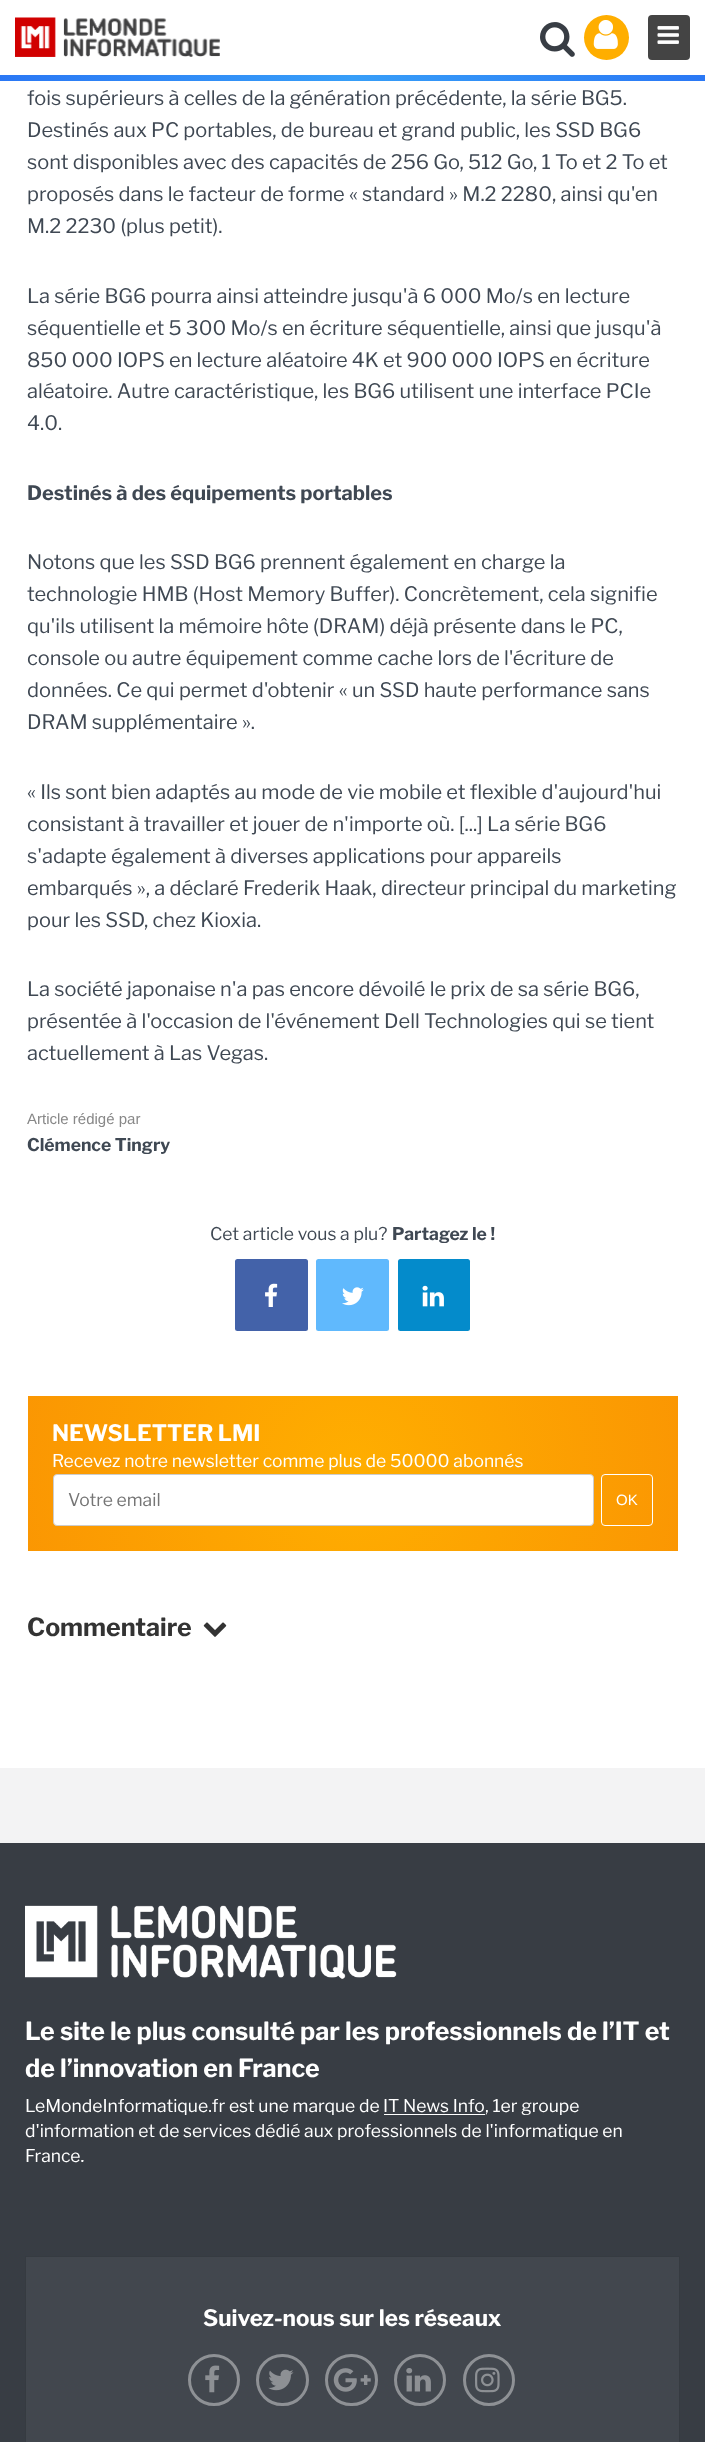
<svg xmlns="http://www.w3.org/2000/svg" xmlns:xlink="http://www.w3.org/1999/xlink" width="705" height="2442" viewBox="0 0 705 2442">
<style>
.cls-1{font:20px Libre Franklin;fill:#3f4853}
.cls-2{font:bold 20px Libre Franklin;fill:#3f4853}
.cls-3{font:15px Liberation Sans;fill:#888888}
.cls-4{font:bold 17.5px Libre Franklin;fill:#3f4853}
.cls-5{font:17.5px Libre Franklin;fill:#3f4853}
.cls-6{font:bold 22.5px Libre Franklin;fill:#ffffff}
.cls-7{font:17.5px Libre Franklin;fill:#ffffff}
.cls-8{font:17.5px Libre Franklin;fill:#757575}
.cls-9{font:15px Liberation Sans;fill:#ffffff}
.cls-10{font:bold 25px Libre Franklin;fill:#333333}
.cls-11{font:bold 25px Libre Franklin;fill:#ffffff}
</style>
<defs>
<radialGradient id="g1" gradientUnits="userSpaceOnUse" cx="353" cy="78" r="2662"><stop offset="0" stop-color="#379ef8"/><stop offset="0.2" stop-color="#2464f3"/><stop offset="0.7" stop-color="#2378ef"/></radialGradient>
<radialGradient id="g2" gradientUnits="userSpaceOnUse" cx="353" cy="1474" r="2662"><stop offset="0" stop-color="#ffae00"/><stop offset="0.2" stop-color="#f88904"/><stop offset="0.7" stop-color="#f39907"/></radialGradient>
</defs>
<rect width="100%" height="100%" fill="#f3f3f4"/>
<rect fill="#ffffff" x="0" y="0" width="705" height="75"/>
<image xlink:href="image0.png" x="15" y="17" width="205" height="40"/>
<image xlink:href="image1.png" x="540" y="22" width="35" height="35"/>
<circle fill="#ffae00" cx="606.5" cy="37.5" r="22.5"/>
<image xlink:href="image2.png" x="593" y="20" width="25" height="29"/>
<rect fill="#444444" x="648" y="15" width="42" height="45" rx="4"/>
<image xlink:href="image3.png" x="657" y="26" width="22" height="18"/>
<rect fill="url(#g1)" x="0" y="75" width="705" height="6"/>
<rect fill="#ffffff" x="0" y="81" width="705" height="1687"/>
<rect fill="#4362a9" x="235" y="1259" width="73" height="72" rx="2.5"/>
<image xlink:href="image4.png" x="265" y="1283" width="13" height="24"/>
<rect fill="#60b9fd" x="316" y="1259" width="73" height="72" rx="2.5"/>
<image xlink:href="image5.png" x="342" y="1287" width="22" height="19"/>
<rect fill="#048bcb" x="398" y="1259" width="72" height="72" rx="2.5"/>
<image xlink:href="image6.png" x="422" y="1285" width="22" height="22"/>
<rect fill="url(#g2)" x="28" y="1396" width="650" height="155"/>
<rect fill="#ffffff" stroke="#cccccc" x="53.5" y="1474.5" width="540" height="51" rx="3.5"/>
<rect fill="none" stroke="#ffffff" x="601.5" y="1474.5" width="51" height="51" rx="3.5"/>
<image xlink:href="image7.png" x="203" y="1622" width="24" height="15"/>
<rect fill="#383d44" x="0" y="1843" width="705" height="599"/>
<image xlink:href="image8.png" x="25" y="1905" width="372" height="74"/>
<rect fill="#ffffff" x="384" y="2114" width="101" height="1"/>
<rect fill="#42474e" stroke="#363b41" x="25.5" y="2256.5" width="654" height="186"/>
<circle fill="none" stroke="#8e9195" stroke-width="3" cx="214" cy="2380" r="24.5"/>
<image xlink:href="image9.png" x="205" y="2365" width="15" height="28"/>
<rect fill="none" stroke="#8e9195" stroke-width="3" x="257.5" y="2355.5" width="50" height="49" rx="24.5"/>
<image xlink:href="image10.png" x="268" y="2369" width="26" height="22"/>
<rect fill="none" stroke="#8e9195" stroke-width="3" x="326.5" y="2355.5" width="50" height="49" rx="24.5"/>
<image xlink:href="image11.png" x="333" y="2368" width="38" height="24"/>
<circle fill="none" stroke="#8e9195" stroke-width="3" cx="420" cy="2380" r="24.5"/>
<image xlink:href="image12.png" x="406" y="2368" width="25" height="24"/>
<circle fill="none" stroke="#8e9195" stroke-width="3" cx="489" cy="2380" r="24.5"/>
<image xlink:href="image13.png" x="475" y="2367" width="25" height="26"/>
<text class="cls-1"><tspan x="27" y="105">fois supérieurs à celles de la génération précédente, la série BG5.</tspan><tspan x="27" y="137">Destinés aux PC portables, de bureau et grand public, les SSD BG6</tspan><tspan x="27" y="169">sont disponibles avec des capacités de 256 Go, 512 Go, 1 To et 2 To et</tspan><tspan x="27" y="201">proposés dans le facteur de forme « standard » M.2 2280, ainsi qu'en</tspan><tspan x="27" y="233">M.2 2230 (plus petit).</tspan></text>
<text class="cls-1"><tspan x="27" y="303">La série BG6 pourra ainsi atteindre jusqu'à 6 000 Mo/s en lecture</tspan><tspan x="27" y="335">séquentielle et 5 300 Mo/s en écriture séquentielle, ainsi que jusqu'à</tspan><tspan x="27" y="367">850 000 IOPS en lecture aléatoire 4K et 900 000 IOPS en écriture</tspan><tspan x="27" y="398">aléatoire. Autre caractéristique, les BG6 utilisent une interface PCIe</tspan><tspan x="27" y="430">4.0.</tspan></text>
<text class="cls-2" x="27" y="500">Destinés à des équipements portables</text>
<text class="cls-1"><tspan x="27" y="569">Notons que les SSD BG6 prennent également en charge la</tspan><tspan x="27" y="601">technologie HMB (Host Memory Buffer). Concrètement, cela signifie</tspan><tspan x="27" y="633">qu'ils utilisent la mémoire hôte (DRAM) déjà présente dans le PC,</tspan><tspan x="27" y="665">console ou autre équipement comme cache lors de l'écriture de</tspan><tspan x="27" y="697">données. Ce qui permet d'obtenir « un SSD haute performance sans</tspan><tspan x="27" y="729">DRAM supplémentaire ».</tspan></text>
<text class="cls-1"><tspan x="27" y="799">« Ils sont bien adaptés au mode de vie mobile et flexible d'aujourd'hui</tspan><tspan x="27" y="831">consistant à travailler et jouer de n'importe où. [...] La série BG6</tspan><tspan x="27" y="863">s'adapte également à diverses applications pour appareils</tspan><tspan x="27" y="895">embarqués », a déclaré Frederik Haak, directeur principal du marketing</tspan><tspan x="27" y="927">pour les SSD, chez Kioxia.</tspan></text>
<text class="cls-1"><tspan x="27" y="996">La société japonaise n'a pas encore dévoilé le prix de sa série BG6,</tspan><tspan x="27" y="1028">présentée à l'occasion de l'événement Dell Technologies qui se tient</tspan><tspan x="27" y="1060">actuellement à Las Vegas.</tspan></text>
<text class="cls-3" x="27" y="1124">Article rédigé par</text>
<text class="cls-4" x="27" y="1151">Clémence Tingry</text>
<text class="cls-5" x="210" y="1240">Cet article vous a plu?</text>
<text class="cls-4" x="392" y="1240">Partagez le !</text>
<text class="cls-6" x="52" y="1441">NEWSLETTER LMI</text>
<text class="cls-7" x="52" y="1467">Recevez notre newsletter comme plus de 50000 abonnés</text>
<text class="cls-8" x="68" y="1506">Votre email</text>
<text class="cls-9" x="616" y="1505">OK</text>
<text class="cls-10" x="27" y="1636">Commentaire</text>
<text class="cls-11"><tspan x="25" y="2040">Le site le plus consulté par les professionnels de l’IT et</tspan><tspan x="25" y="2077">de l’innovation en France</tspan></text>
<text class="cls-7" x="25" y="2112">LeMondeInformatique.fr est une marque de</text>
<text class="cls-7" x="383" y="2112">IT News Info</text>
<text class="cls-7" x="485" y="2112">, 1er groupe</text>
<text class="cls-7"><tspan x="25" y="2137">d'information et de services dédié aux professionnels de l'informatique en</tspan><tspan x="25" y="2162">France.</tspan></text>
<text class="cls-6" x="203" y="2326">Suivez-nous sur les réseaux</text>
</svg>
